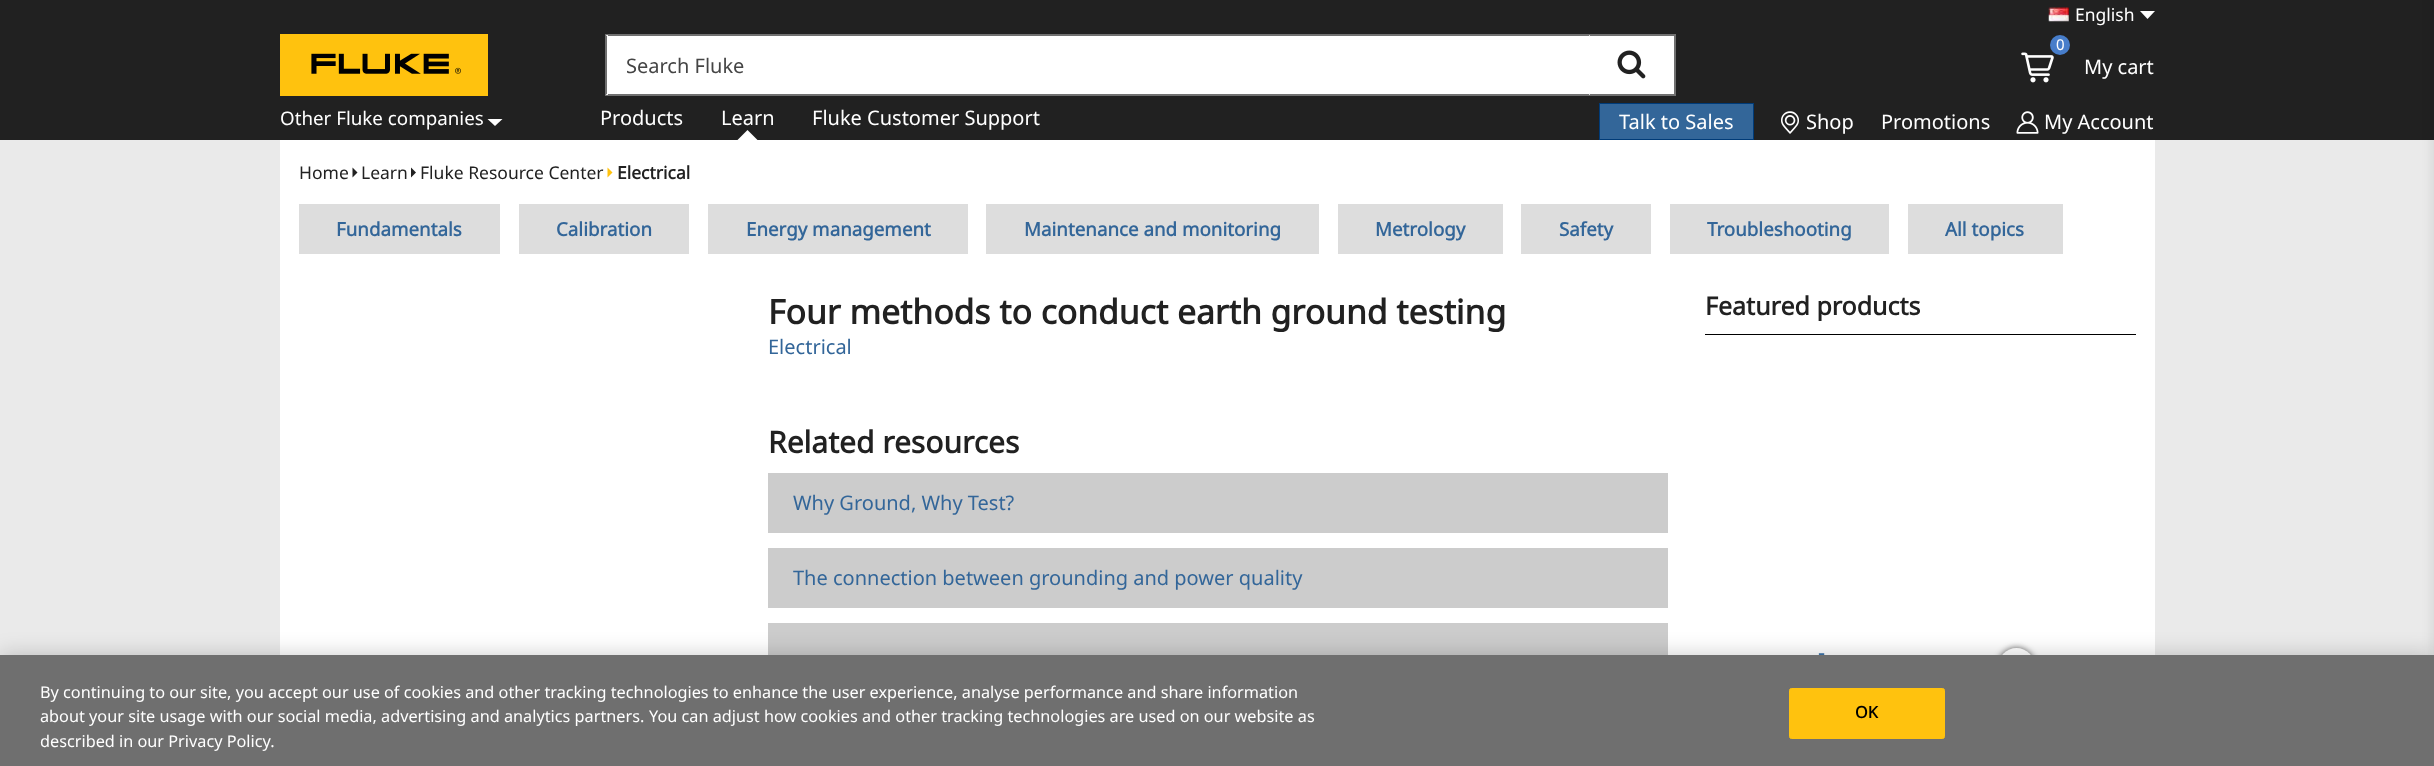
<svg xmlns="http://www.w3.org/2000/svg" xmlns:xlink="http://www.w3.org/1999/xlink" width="2434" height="766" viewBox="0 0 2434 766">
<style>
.cls-1{font:17.5px Noto Sans;fill:#ffffff}
.cls-2{font:15px Noto Sans;fill:#ffffff}
.cls-3{font:20px Noto Sans;fill:#ffffff}
.cls-4{font:18.75px Noto Sans;fill:#ffffff}
.cls-5{font:20px Noto Sans;fill:#454545}
.cls-6{font:17.5px Noto Sans;fill:#212121}
.cls-7{font:bold 17.5px Noto Sans;fill:#212121}
.cls-8{font:bold 18.75px Noto Sans;fill:#336699}
.cls-9{font:bold 33.75px Noto Sans;fill:#212121}
.cls-10{font:20px Noto Sans;fill:#336699}
.cls-11{font:bold 30px Noto Sans;fill:#212121}
.cls-12{font:bold 25px Noto Sans;fill:#212121}
.cls-13{font:22px Noto Sans;fill:#336699}
.cls-14{font:16.25px Noto Sans;fill:#ffffff}
.cls-15{font:bold 16.25px Noto Sans;fill:#000000}
</style>
<rect width="100%" height="100%" fill="#eaeaea"/>
<rect fill="#212121" x="0" y="0" width="2434" height="140"/>
<image xlink:href="image0.png" x="2048" y="7" width="21" height="15"/>
<path fill="#ffffff" d="M2140 11H2155L2147.5 19Z"/>
<image xlink:href="image1.png" x="280" y="34" width="208" height="62"/>
<image xlink:href="image2.png" x="2021" y="52" width="33" height="31"/>
<circle fill="#477dca" cx="2060" cy="45" r="10"/>
<rect fill="#000000" fill-opacity="0.1" filter="blur(6px)" x="2433" y="0" width="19" height="766"/>
<rect fill="#336699" stroke="#003b78" x="1599.5" y="103.5" width="154" height="36"/>
<image xlink:href="image3.png" x="1781" y="111" width="18" height="23"/>
<image xlink:href="image4.png" x="2016" y="111" width="23" height="23"/>
<path fill="#ffffff" d="M487.5 119H502.5L495 126Z"/>
<path fill="#ffffff" d="M737.5 140L747.5 130L757.5 140Z"/>
<rect fill="#cccccc" x="606" y="35" width="984" height="60"/>
<rect fill="none" stroke="#707070" x="605.5" y="34.5" width="1070" height="61"/>
<rect fill="#ffffff" x="606" y="35" width="984" height="60" rx="2.5"/>
<rect fill="#707070" x="608" y="35" width="981" height="1"/>
<rect fill="#707070" x="608" y="94" width="981" height="1"/>
<rect fill="#707070" x="606" y="36" width="1" height="58"/>
<rect fill="#ffffff" x="1590" y="36" width="84" height="58"/>
<rect fill="#707070" x="1590" y="35" width="85" height="1"/>
<rect fill="#707070" x="1674" y="35" width="1" height="60"/>
<rect fill="#707070" x="1590" y="94" width="85" height="1"/>
<image xlink:href="image5.png" x="1617" y="50" width="29" height="29"/>
<rect fill="#ffffff" x="280" y="140" width="1875" height="515"/>
<path fill="#212121" d="M352.5 177.5V167.5L357.5 172.5Z"/>
<path fill="#212121" d="M411 177.5V167.5L416 172.5Z"/>
<path fill="#ffc20e" d="M607.5 177.5V167.5L612.5 172.5Z"/>
<rect fill="#dddddd" x="299" y="204" width="201" height="50"/>
<rect fill="#dddddd" x="519" y="204" width="170" height="50"/>
<rect fill="#dddddd" x="708" y="204" width="260" height="50"/>
<rect fill="#dddddd" x="986" y="204" width="333" height="50"/>
<rect fill="#dddddd" x="1338" y="204" width="165" height="50"/>
<rect fill="#dddddd" x="1521" y="204" width="130" height="50"/>
<rect fill="#dddddd" x="1670" y="204" width="219" height="50"/>
<rect fill="#dddddd" x="1908" y="204" width="155" height="50"/>
<rect fill="#cccccc" x="768" y="473" width="900" height="60"/>
<rect fill="#cccccc" x="768" y="548" width="900" height="60"/>
<rect fill="#cccccc" x="768" y="623" width="900" height="32"/>
<rect fill="#000000" x="1705" y="334" width="431" height="1"/>
<rect fill="#3f3f3f" fill-opacity="0.85" filter="blur(3px)" x="1998" y="648" width="37" height="37" rx="18.5"/>
<circle fill="#ffffff" cx="2016.5" cy="666.5" r="18.5"/>
<rect fill="#000000" fill-opacity="0.2" filter="blur(11px)" x="0" y="655" width="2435" height="111"/>
<rect fill="#6f6f6f" x="0" y="655" width="2434" height="111"/>
<rect fill="#ffc20e" stroke="#ffc20e" x="1789.5" y="688.5" width="155" height="50" rx="2"/>
<text class="cls-1" x="2075" y="21">English</text>
<text class="cls-2" x="2056" y="50">0</text>
<text class="cls-3" x="2084" y="74">My cart</text>
<text class="cls-3" x="1619" y="129">Talk to Sales</text>
<text class="cls-3" x="1806" y="129">Shop</text>
<text class="cls-3" x="1881" y="129">Promotions</text>
<text class="cls-3" x="2044" y="129">My Account</text>
<text class="cls-4" x="280" y="125">Other Fluke companies</text>
<text class="cls-3" x="600" y="125">Products</text>
<text class="cls-3" x="721" y="125">Learn</text>
<text class="cls-3" x="812" y="125">Fluke Customer Support</text>
<text class="cls-5" x="626" y="73">Search Fluke</text>
<text class="cls-6" x="299" y="179">Home</text>
<text class="cls-6" x="361" y="179">Learn</text>
<text class="cls-6" x="420" y="179">Fluke Resource Center</text>
<text class="cls-7" x="617" y="179">Electrical</text>
<text class="cls-8" x="336" y="236">Fundamentals</text>
<text class="cls-8" x="556" y="236">Calibration</text>
<text class="cls-8" x="746" y="236">Energy management</text>
<text class="cls-8" x="1024" y="236">Maintenance and monitoring</text>
<text class="cls-8" x="1375" y="236">Metrology</text>
<text class="cls-8" x="1559" y="236">Safety</text>
<text class="cls-8" x="1707" y="236">Troubleshooting</text>
<text class="cls-8" x="1945" y="236">All topics</text>
<text class="cls-9" x="768" y="324">Four methods to conduct earth ground testing</text>
<text class="cls-10" x="768" y="354">Electrical</text>
<text class="cls-11" x="768" y="453">Related resources</text>
<text class="cls-10" x="793" y="510">Why Ground, Why Test?</text>
<text class="cls-10" x="793" y="585">The connection between grounding and power quality</text>
<text class="cls-12" x="1705" y="315">Featured products</text>
<text class="cls-13" x="1818" y="660">-</text>
<text class="cls-14"><tspan x="40" y="698">By continuing to our site, you accept our use of cookies and other tracking technologies to enhance the user experience, analyse performance and share information</tspan><tspan x="40" y="722">about your site usage with our social media, advertising and analytics partners.</tspan></text>
<text class="cls-14" x="649" y="722">You can adjust how cookies and other tracking technologies are used on our website as</text>
<text class="cls-14" x="40" y="747">described in our Privacy Policy.</text>
<text class="cls-15" x="1855" y="718">OK</text>
</svg>
